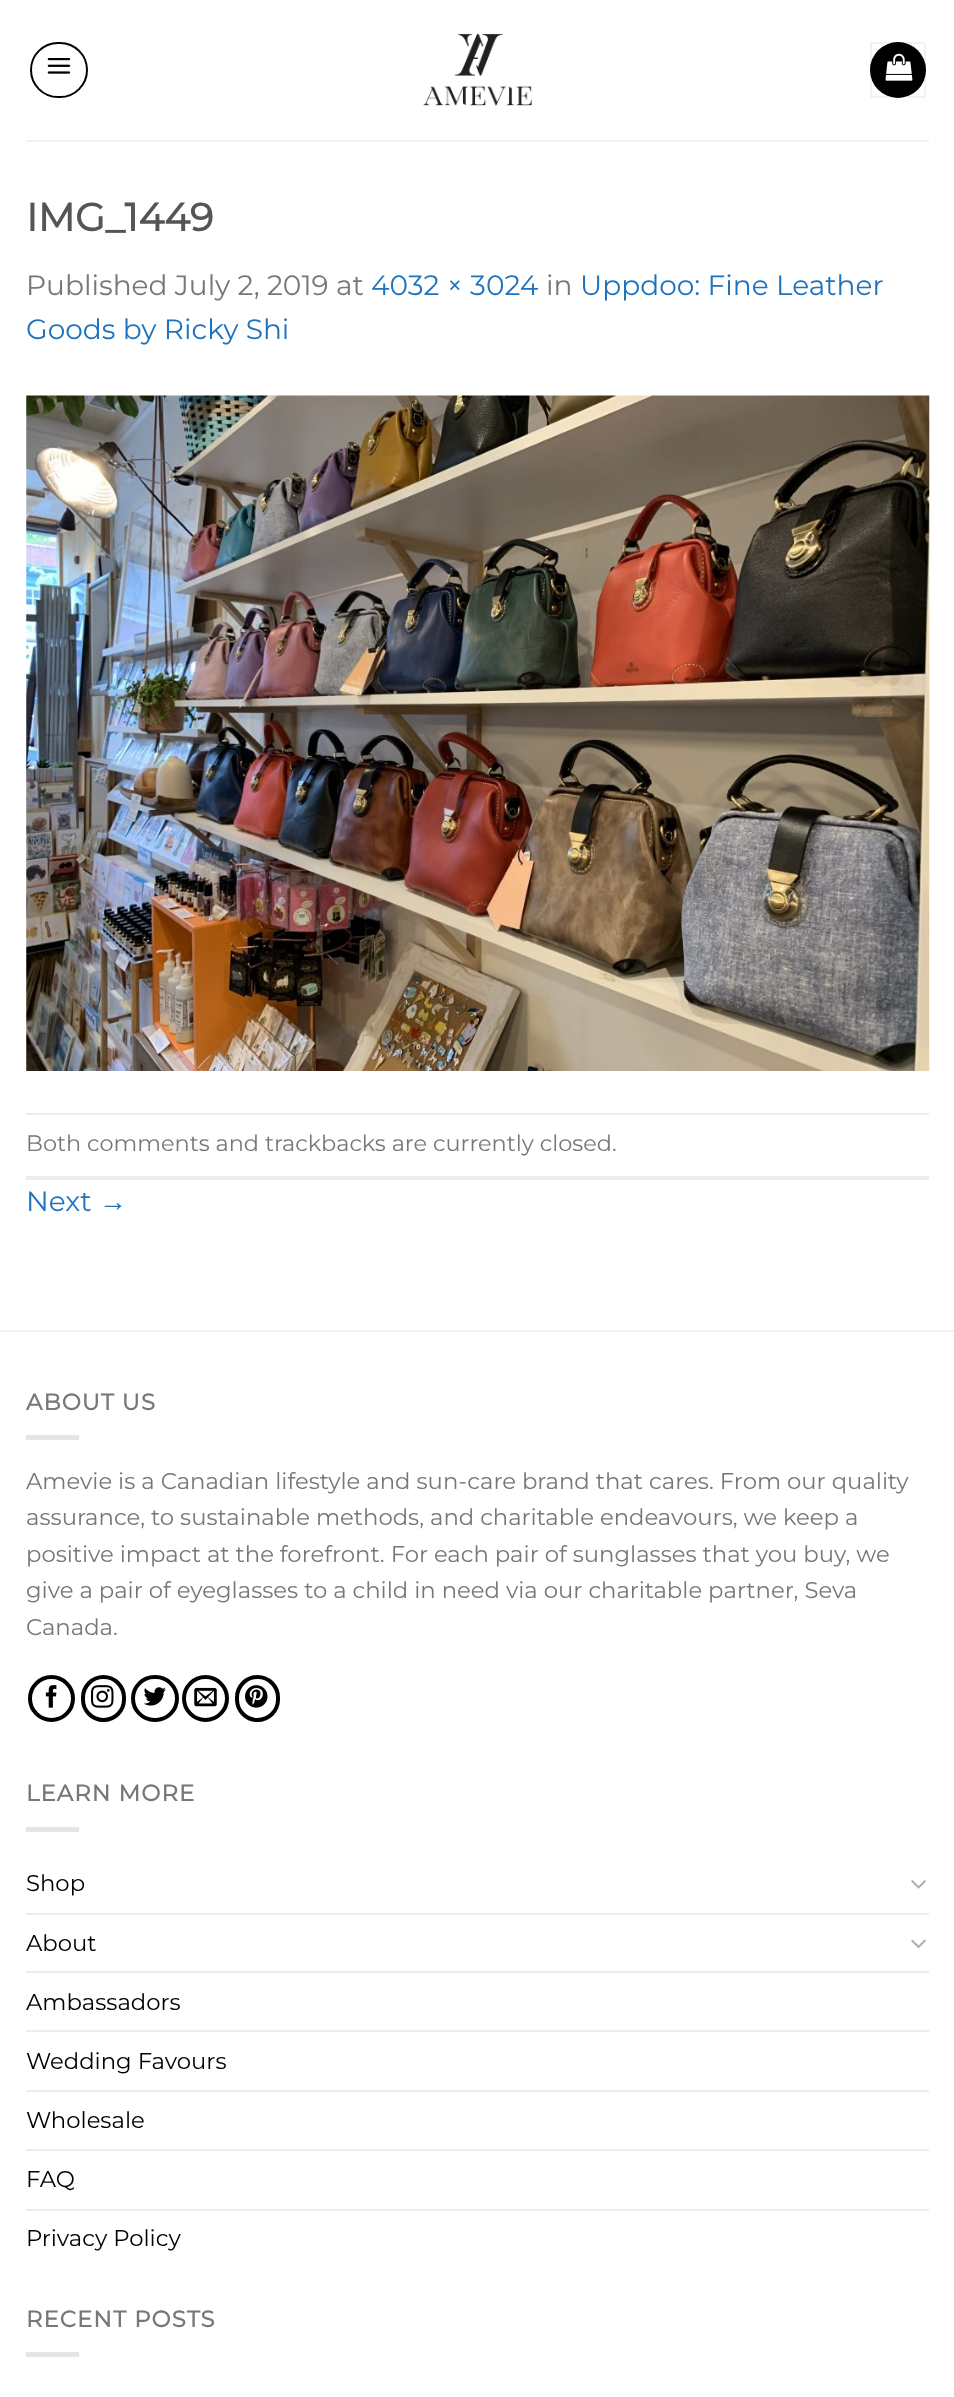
<svg xmlns="http://www.w3.org/2000/svg" xmlns:xlink="http://www.w3.org/1999/xlink" width="954" height="2397" viewBox="0 0 954 2397">
<style>
.cls-1{font:bold 39px Montserrat;fill:#555555}
.cls-2{font:28px Montserrat;fill:#777777}
.cls-3{font:28px Montserrat;fill:#1e73be}
.cls-4{font:22.4px Montserrat;fill:#777777}
.cls-5{font:28px Liberation Sans;fill:#1e73be}
.cls-6{font:bold 22.75px Montserrat;letter-spacing:1.1px;fill:#777777}
.cls-7{font:22.75px Montserrat;fill:#777777}
.cls-8{font:22.75px Montserrat;fill:#000000}
</style>
<rect width="100%" height="100%" fill="#ffffff"/>
<rect fill="none" stroke="#000000" stroke-width="2" x="31" y="43" width="56" height="54" rx="27"/>
<image xlink:href="image0.png" x="47" y="58" width="24" height="16"/>
<image xlink:href="image1.png" x="423" y="33" width="110" height="73"/>
<circle fill="#000000" cx="898" cy="70" r="28"/>
<rect fill="none" stroke="#000000" stroke-opacity="0.05" stroke-width="2" x="871" y="43" width="54" height="54"/>
<image xlink:href="image2.png" x="885" y="53" width="28" height="28"/>
<rect fill="#f1f1f1" x="26" y="140" width="903" height="2"/>
<image xlink:href="image3.png" x="26" y="395" width="904" height="676"/>
<rect fill="#ececec" x="26" y="1113" width="903" height="2"/>
<rect fill="#ececec" x="26" y="1176" width="903" height="4"/>
<rect fill="#f2f2f2" x="0" y="1330" width="954" height="2"/>
<rect fill="#e6e6e6" x="26" y="1435" width="53" height="5"/>
<circle fill="none" stroke="#000000" stroke-width="4" cx="51.5" cy="1698.5" r="21.5"/>
<image xlink:href="image4.png" x="45" y="1685" width="12" height="23"/>
<rect fill="none" stroke="#000000" stroke-width="4" x="83" y="1677" width="41" height="43" rx="20.5"/>
<image xlink:href="image5.png" x="91" y="1685" width="23" height="23"/>
<rect fill="none" stroke="#000000" stroke-width="4" x="133" y="1677" width="44" height="43" rx="21.5"/>
<image xlink:href="image6.png" x="143" y="1687" width="23" height="19"/>
<circle fill="none" stroke="#000000" stroke-width="4" cx="205.5" cy="1698.5" r="21.5"/>
<image xlink:href="image7.png" x="194" y="1687" width="23" height="20"/>
<rect fill="none" stroke="#000000" stroke-width="4" x="237" y="1677" width="41" height="43" rx="20.5"/>
<image xlink:href="image8.png" x="245" y="1685" width="23" height="23"/>
<rect fill="#e6e6e6" x="26" y="1827" width="53" height="5"/>
<image xlink:href="image9.png" x="911" y="1880" width="15" height="9"/>
<rect fill="#ececec" x="26" y="1913" width="903" height="2"/>
<image xlink:href="image10.png" x="911" y="1939" width="15" height="10"/>
<rect fill="#ececec" x="26" y="1971" width="903" height="2"/>
<rect fill="#ececec" x="26" y="2030" width="903" height="2"/>
<rect fill="#ececec" x="26" y="2090" width="903" height="2"/>
<rect fill="#ececec" x="26" y="2149" width="903" height="2"/>
<rect fill="#ececec" x="26" y="2209" width="903" height="2"/>
<rect fill="#e6e6e6" x="26" y="2352" width="53" height="5"/>
<text class="cls-1" x="26" y="231">IMG_1449</text>
<text class="cls-2" x="26" y="295">Published July 2, 2019 at</text>
<text class="cls-3" x="371" y="295">4032 × 3024</text>
<text class="cls-2" x="546" y="295">in</text>
<text class="cls-3" x="580" y="295">Uppdoo: Fine Leather</text>
<text class="cls-3" x="26" y="339">Goods by Ricky Shi</text>
<text class="cls-4" x="26" y="1151">Both comments and trackbacks are currently closed.</text>
<text class="cls-3" x="26" y="1211">Next</text>
<text class="cls-5" x="99" y="1211">→</text>
<text class="cls-6" x="26" y="1410">ABOUT US</text>
<text class="cls-7"><tspan x="26" y="1489">Amevie is a Canadian lifestyle and sun-care brand that cares. From our quality</tspan><tspan x="26" y="1525">assurance, to sustainable methods, and charitable endeavours, we keep a</tspan><tspan x="26" y="1562">positive impact at the forefront. For each pair of sunglasses that you buy, we</tspan><tspan x="26" y="1598">give a pair of eyeglasses to a child in need via our charitable partner, Seva</tspan><tspan x="26" y="1635">Canada.</tspan></text>
<text class="cls-6" x="26" y="1801">LEARN MORE</text>
<text class="cls-8" x="26" y="1891">Shop</text>
<text class="cls-8" x="26" y="1951">About</text>
<text class="cls-8" x="26" y="2010">Ambassadors</text>
<text class="cls-8" x="26" y="2069">Wedding Favours</text>
<text class="cls-8" x="26" y="2128">Wholesale</text>
<text class="cls-8" x="26" y="2187">FAQ</text>
<text class="cls-8" x="26" y="2246">Privacy Policy</text>
<text class="cls-6" x="26" y="2327">RECENT POSTS</text>
</svg>
